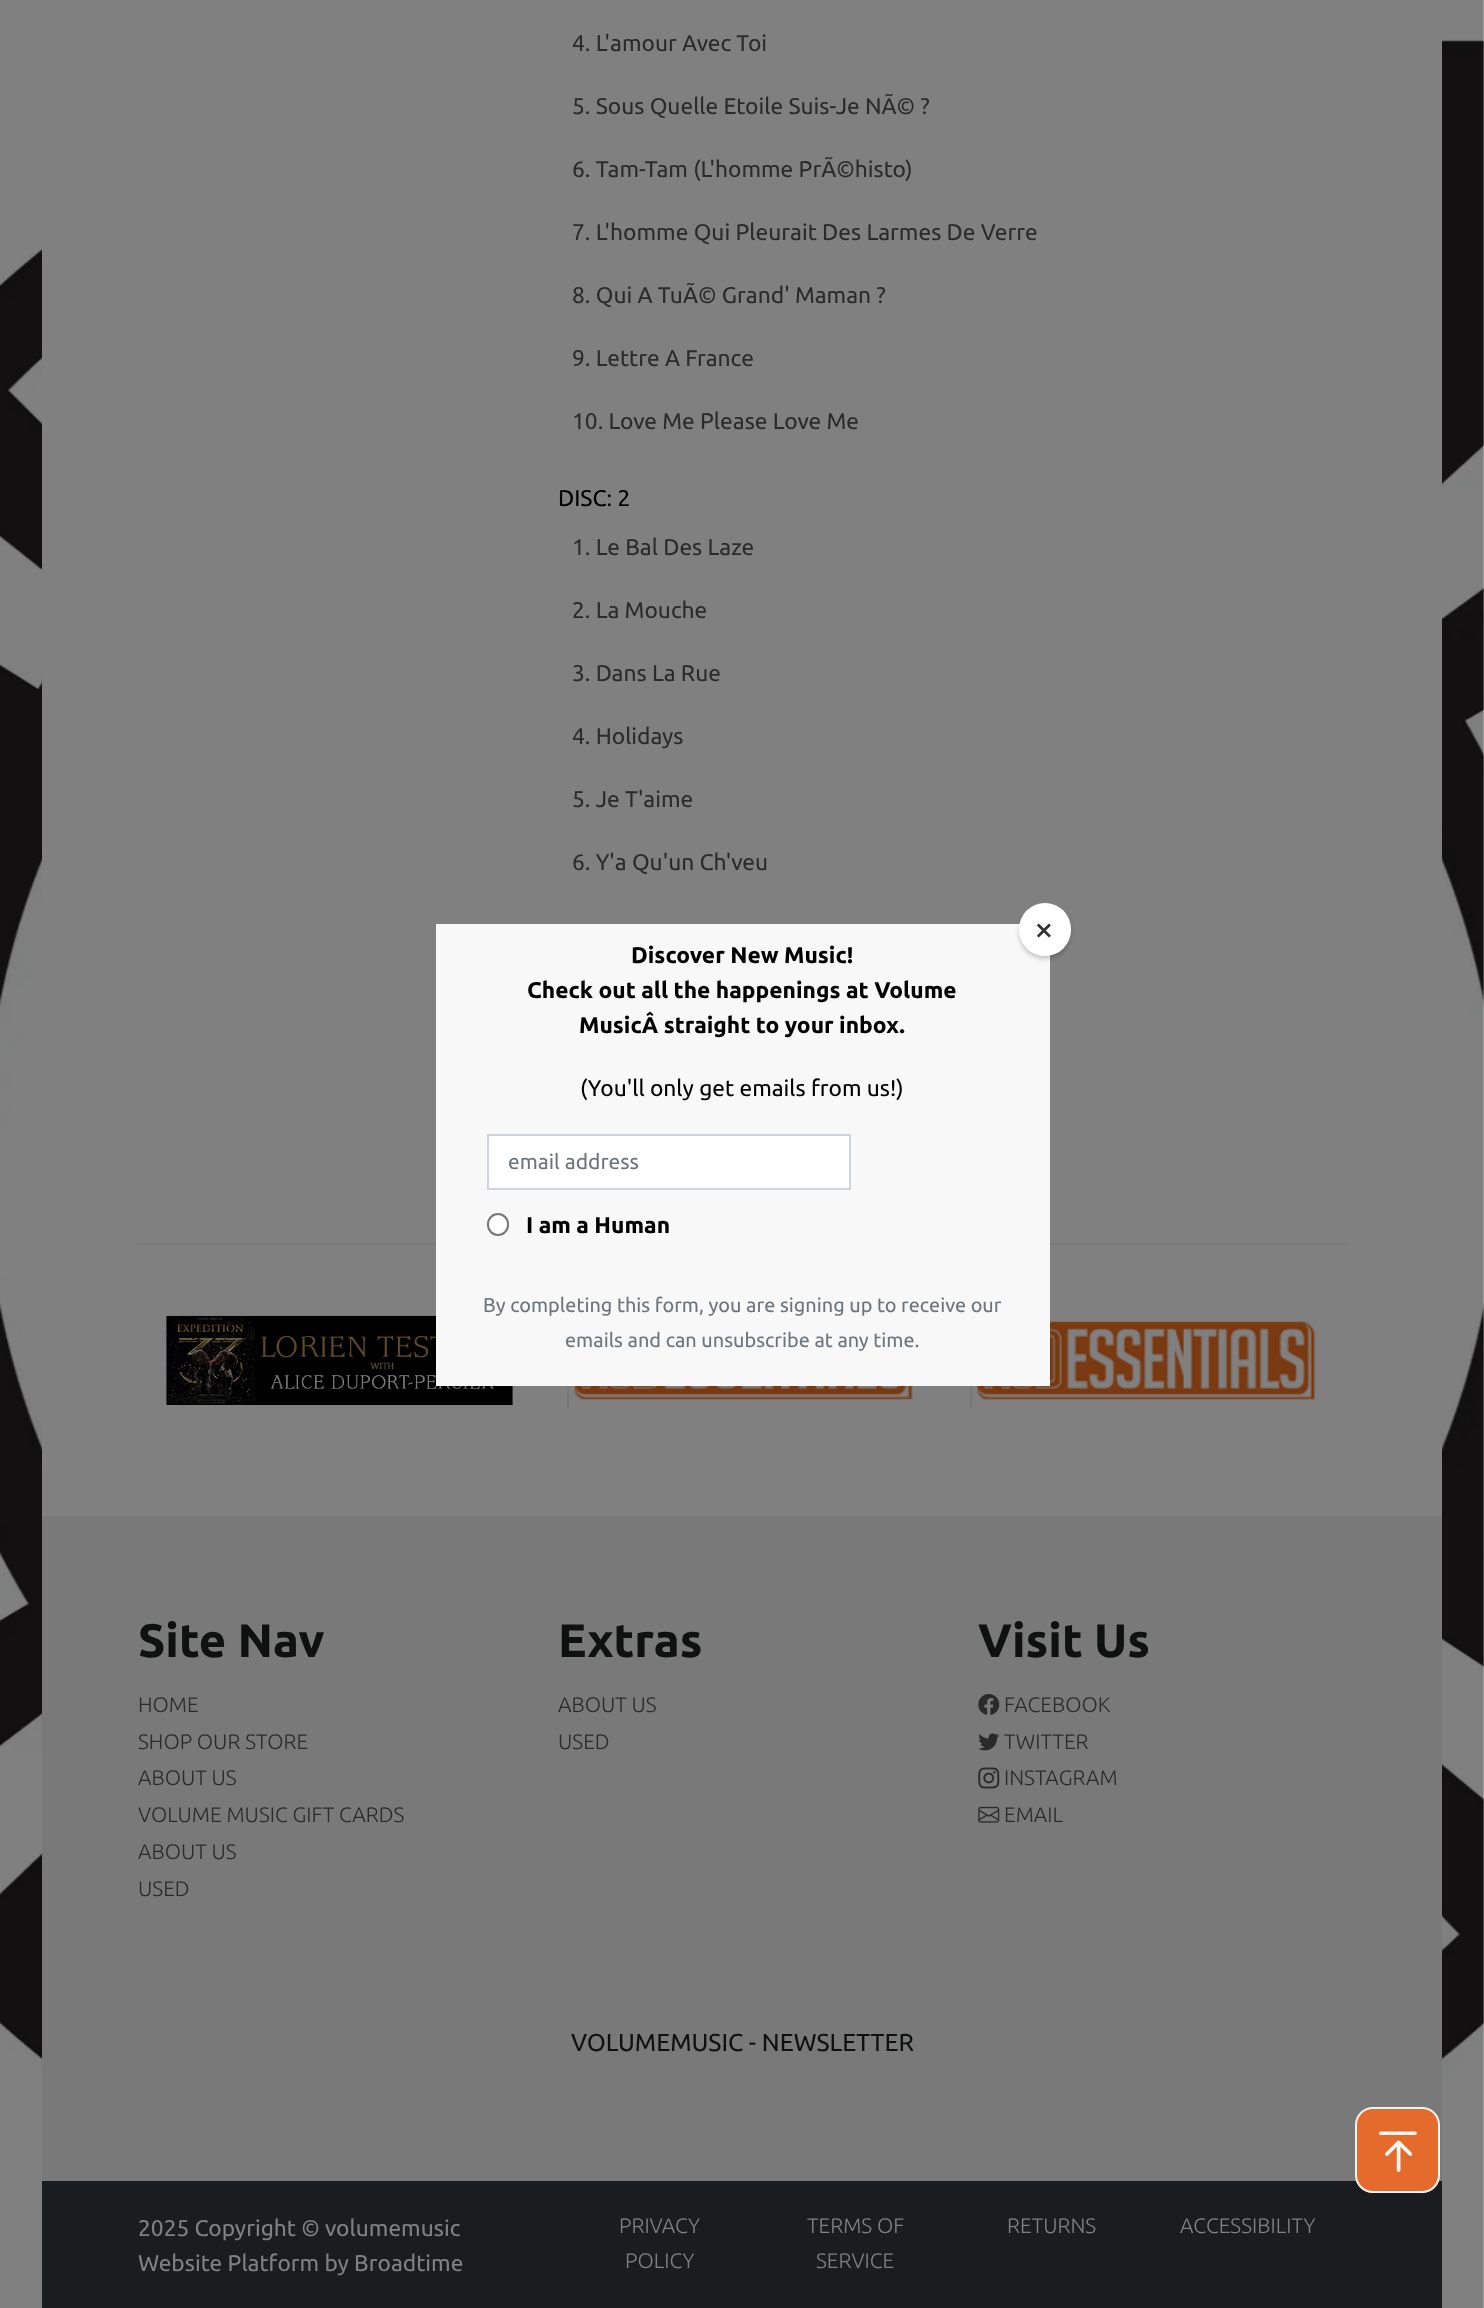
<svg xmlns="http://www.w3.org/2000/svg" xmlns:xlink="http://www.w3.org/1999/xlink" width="1484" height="2308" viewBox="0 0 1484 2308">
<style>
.cls-1{font:22.75px Ubuntu;fill:#2b2b2b}
.cls-2{font:22.75px Ubuntu;fill:#000000}
.cls-3{font:35px Ubuntu;fill:#323232}
.cls-4{font:bold 22.75px Ubuntu;fill:#000000}
.cls-5{font:21px Ubuntu;fill:#6c757d}
.cls-6{font:19.9px Ubuntu;fill:#6c757d}
.cls-7{font:bold 47px Ubuntu;fill:#0f1010}
.cls-8{font:300 21px Ubuntu;fill:#2b2b2b}
.cls-9{font:24.5px Ubuntu;fill:#0f1010}
.cls-10{font:22.75px Ubuntu;fill:#808080}
.cls-11{font:300 21px Ubuntu;fill:#808080}
</style>
<rect width="100%" height="100%" fill="#ffffff"/>
<image xlink:href="image0.png" x="0" y="0" width="1484" height="2308"/>
<rect fill="#808080" x="42" y="0" width="1400" height="1516"/>
<rect fill="#797979" x="138" y="1243" width="1208" height="2"/>
<image xlink:href="image1.png" x="166" y="1315" width="347" height="90"/>
<rect fill="#777777" x="567" y="1386" width="2" height="21"/>
<image xlink:href="image2.png" x="574" y="1386" width="339" height="14"/>
<rect fill="#777777" x="970" y="1386" width="2" height="21"/>
<image xlink:href="image3.png" x="977" y="1321" width="339" height="79"/>
<rect fill="#f8f8f8" x="436" y="924" width="614" height="462"/>
<rect fill="#000000" fill-opacity="0.2" filter="blur(2px)" x="1019" y="907" width="52" height="52" rx="26"/>
<rect fill="#ffffff" x="1019" y="903" width="52" height="53" rx="26"/>
<rect fill="#ffffff" stroke="#ced4da" stroke-width="2" x="488" y="1135" width="362" height="54"/>
<rect fill="#ffffff" stroke="#767676" stroke-width="2" x="488" y="1214" width="20" height="21" rx="10"/>
<rect fill="#797979" x="42" y="1516" width="1400" height="665"/>
<image xlink:href="image4.png" x="978" y="1694" width="22" height="21"/>
<image xlink:href="image5.png" x="978" y="1733" width="22" height="18"/>
<image xlink:href="image6.png" x="978" y="1767" width="22" height="22"/>
<image xlink:href="image7.png" x="978" y="1806" width="22" height="17"/>
<rect fill="#1a1d20" x="42" y="2181" width="1400" height="127"/>
<image xlink:href="image8.png" x="1355" y="2107" width="85" height="86"/>
<text class="cls-1" x="572" y="51">4. L'amour Avec Toi</text>
<text class="cls-1" x="572" y="114">5. Sous Quelle Etoile Suis-Je NÃ© ?</text>
<text class="cls-1" x="572" y="177">6. Tam-Tam (L'homme PrÃ©histo)</text>
<text class="cls-1" x="572" y="240">7. L'homme Qui Pleurait Des Larmes De Verre</text>
<text class="cls-1" x="572" y="303">8. Qui A TuÃ© Grand' Maman ?</text>
<text class="cls-1" x="572" y="366">9. Lettre A France</text>
<text class="cls-1" x="572" y="429">10. Love Me Please Love Me</text>
<text class="cls-2" x="558" y="506">DISC: 2</text>
<text class="cls-1" x="572" y="555">1. Le Bal Des Laze</text>
<text class="cls-1" x="572" y="618">2. La Mouche</text>
<text class="cls-1" x="572" y="681">3. Dans La Rue</text>
<text class="cls-1" x="572" y="744">4. Holidays</text>
<text class="cls-1" x="572" y="807">5. Je T'aime</text>
<text class="cls-1" x="572" y="870">6. Y'a Qu'un Ch'veu</text>
<text class="cls-3" x="1034" y="941">×</text>
<text class="cls-4" x="631" y="963">Discover New Music!</text>
<text class="cls-4" x="527" y="998">Check out all the happenings at Volume</text>
<text class="cls-4" x="579" y="1033">MusicÂ straight to your inbox.</text>
<text class="cls-2" x="580" y="1096">(You'll only get emails from us!)</text>
<text class="cls-5" x="508" y="1169">email address</text>
<text class="cls-4" x="526" y="1233">I am a Human</text>
<text class="cls-6" x="483" y="1312">By completing this form, you are signing up to receive our</text>
<text class="cls-6" x="565" y="1347">emails and can unsubscribe at any time.</text>
<text class="cls-7" x="138" y="1657">Site Nav</text>
<text class="cls-8"><tspan x="138" y="1712">HOME</tspan><tspan x="138" y="1749">SHOP OUR STORE</tspan><tspan x="138" y="1785">ABOUT US</tspan><tspan x="138" y="1822">VOLUME MUSIC GIFT CARDS</tspan><tspan x="138" y="1859">ABOUT US</tspan><tspan x="138" y="1896">USED</tspan></text>
<text class="cls-7" x="558" y="1657">Extras</text>
<text class="cls-8"><tspan x="558" y="1712">ABOUT US</tspan><tspan x="558" y="1749">USED</tspan></text>
<text class="cls-7" x="978" y="1657">Visit Us</text>
<text class="cls-8"><tspan x="1004" y="1712">FACEBOOK</tspan><tspan x="1004" y="1749">TWITTER</tspan><tspan x="1004" y="1785">INSTAGRAM</tspan><tspan x="1004" y="1822">EMAIL</tspan></text>
<text class="cls-9" x="571" y="2051">VOLUMEMUSIC - NEWSLETTER</text>
<text class="cls-10"><tspan x="138" y="2236">2025 Copyright © volumemusic</tspan><tspan x="138" y="2271">Website Platform by Broadtime</tspan></text>
<text class="cls-11" x="619" y="2233">PRIVACY</text>
<text class="cls-11" x="625" y="2268">POLICY</text>
<text class="cls-11" x="807" y="2233">TERMS OF</text>
<text class="cls-11" x="816" y="2268">SERVICE</text>
<text class="cls-11" x="1007" y="2233">RETURNS</text>
<text class="cls-11" x="1180" y="2233">ACCESSIBILITY</text>
</svg>
